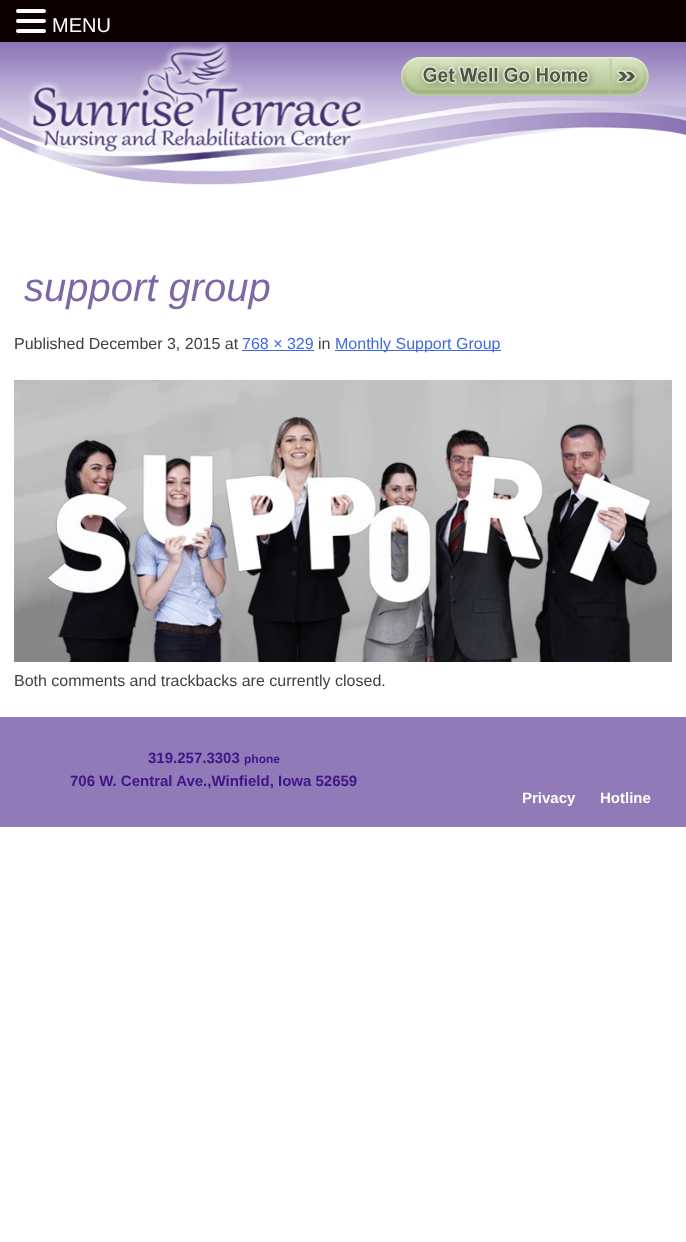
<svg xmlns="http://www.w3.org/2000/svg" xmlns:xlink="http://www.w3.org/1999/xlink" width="686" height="1242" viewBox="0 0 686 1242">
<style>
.cls-1{font:20px Liberation Sans;fill:#ffffff}
.cls-2{font:italic 40px Liberation Sans;fill:#7d67a5}
.cls-3{font:16px Liberation Sans;fill:#404040}
.cls-4{font:16px Liberation Sans;fill:#4169e1}
.cls-5{font:bold 15px Liberation Sans;fill:#401589}
.cls-6{font:bold 12px Liberation Sans;fill:#401589}
.cls-7{font:bold 15px Liberation Sans;fill:#ffffff}
</style>
<rect width="100%" height="100%" fill="#ffffff"/>
<rect fill="#0c0000" x="0" y="0" width="686" height="42"/>
<rect fill="#ffffff" x="16" y="9" width="30" height="4" rx="2"/>
<rect fill="#ffffff" x="16" y="19" width="30" height="4" rx="2"/>
<rect fill="#ffffff" x="16" y="29" width="30" height="4" rx="2"/>
<image xlink:href="image0.png" x="0" y="42" width="686" height="143"/>
<image xlink:href="image1.png" x="28" y="42" width="339" height="131"/>
<image xlink:href="image2.png" x="401" y="57" width="248" height="39"/>
<rect fill="#4169e1" x="242" y="350" width="72" height="1"/>
<rect fill="#4169e1" x="335" y="350" width="166" height="1"/>
<image xlink:href="image3.png" x="14" y="380" width="658" height="282"/>
<rect fill="#907ab7" x="0" y="717" width="686" height="110"/>
<text class="cls-1" x="52" y="32">MENU</text>
<text class="cls-2" x="24" y="301">support group</text>
<text class="cls-3" x="14" y="349">Published December 3, 2015 at</text>
<text class="cls-4" x="242" y="349">768 × 329</text>
<text class="cls-3" x="318" y="349">in</text>
<text class="cls-4" x="335" y="349">Monthly Support Group</text>
<text class="cls-3" x="14" y="686">Both comments and trackbacks are currently closed.</text>
<text class="cls-5" x="148" y="763">319.257.3303</text>
<text class="cls-6" x="244" y="763">phone</text>
<text class="cls-5" x="70" y="786">706 W. Central Ave.,Winfield, Iowa 52659</text>
<text class="cls-7" x="522" y="803">Privacy</text>
<text class="cls-7" x="600" y="803">Hotline</text>
</svg>
